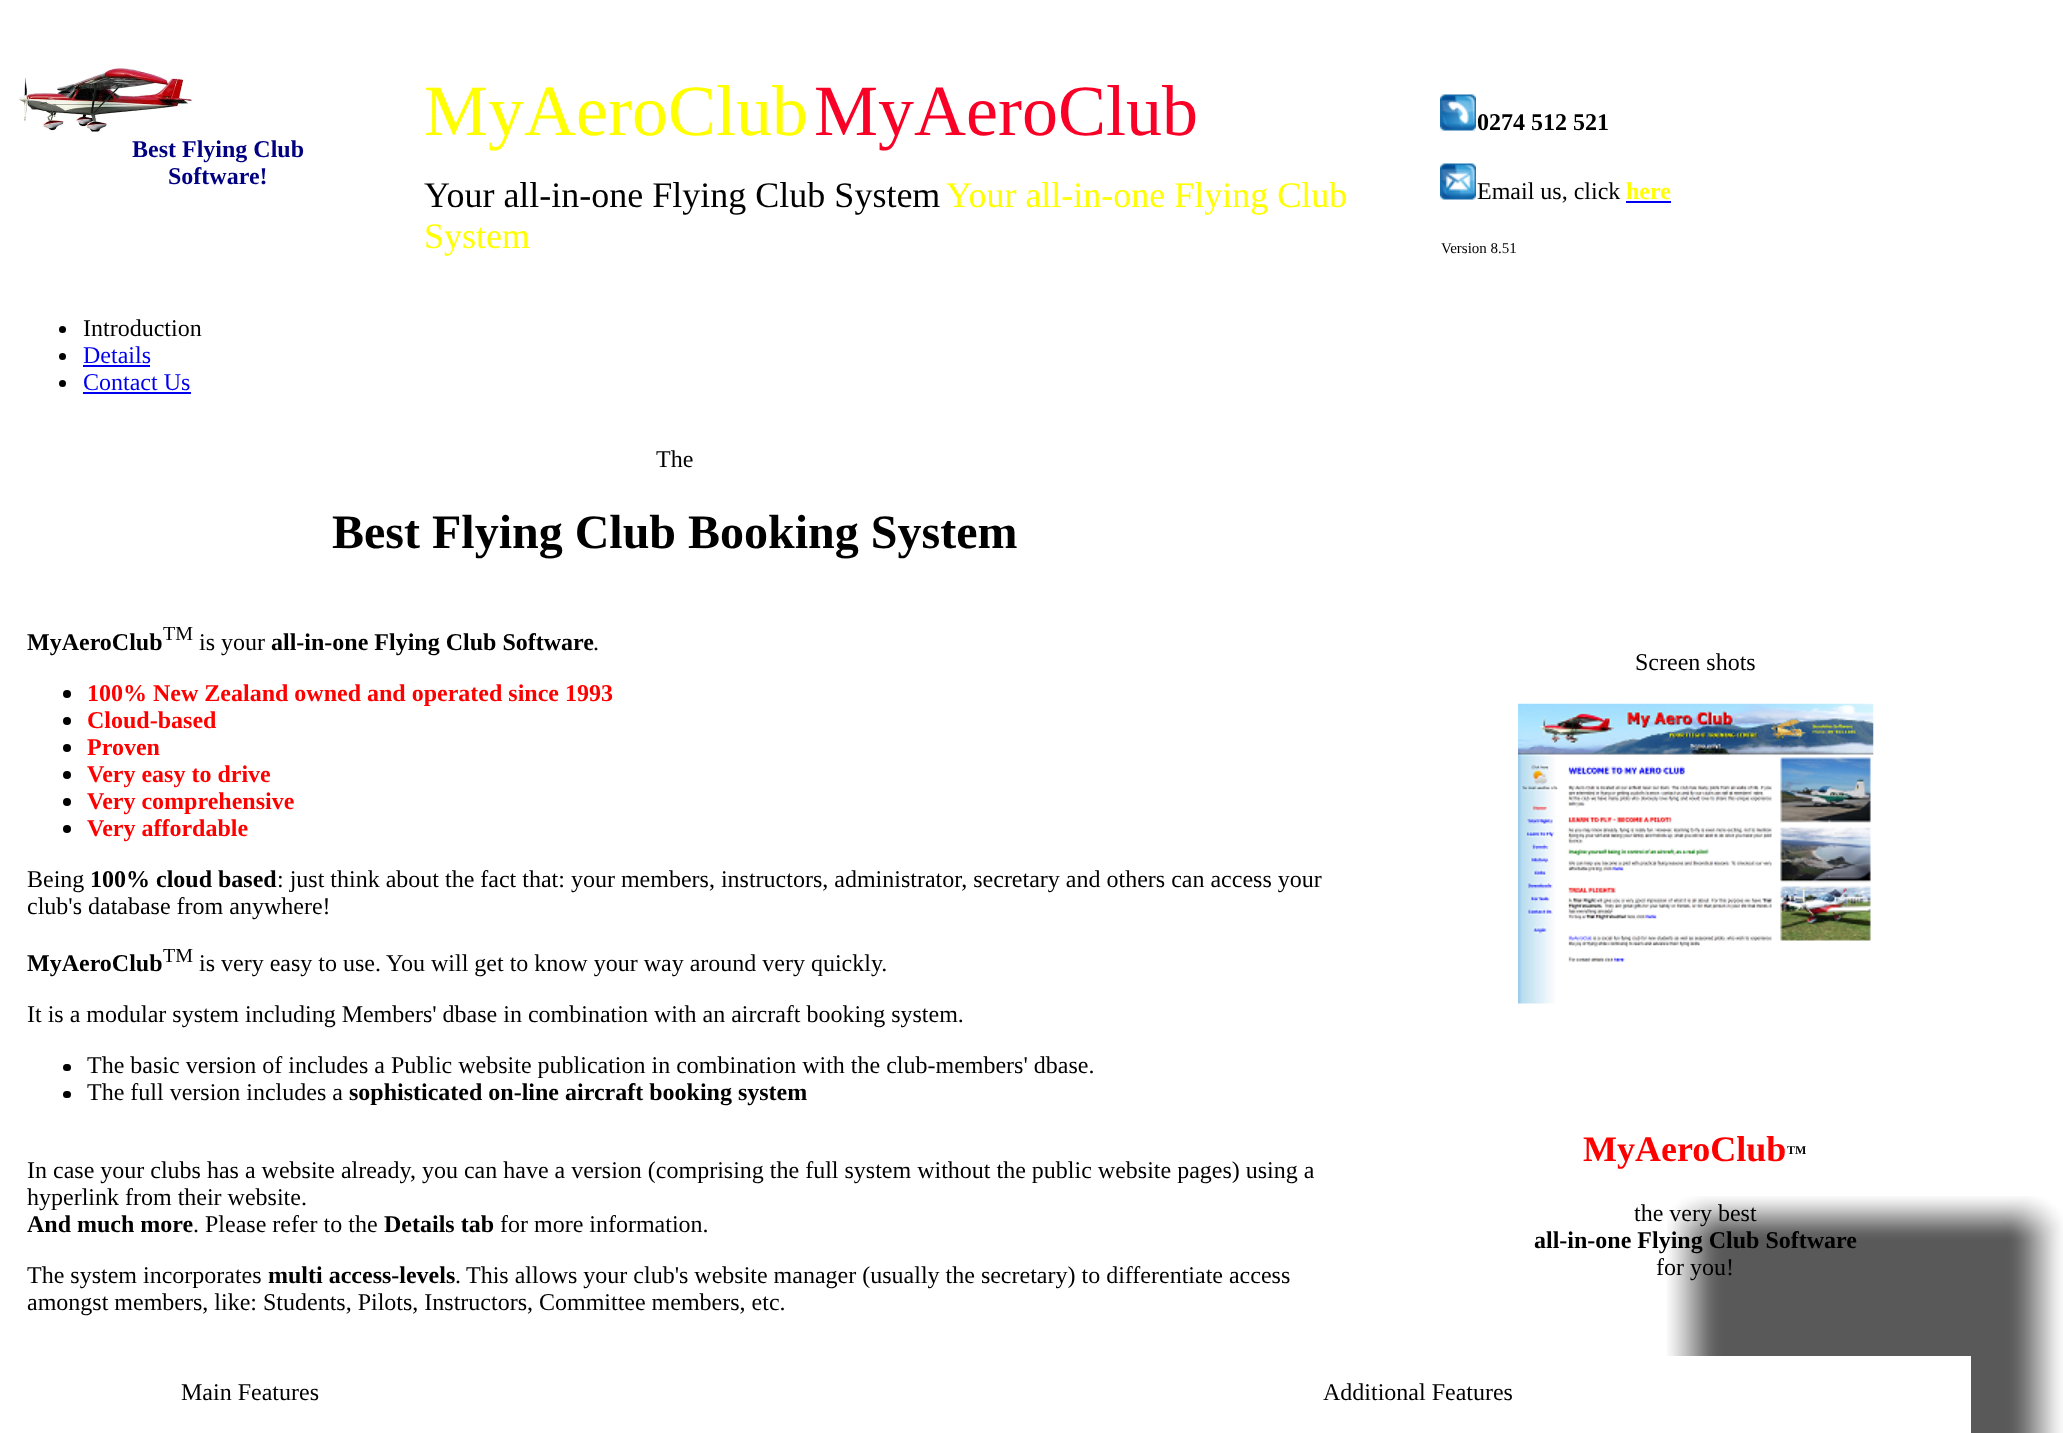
<svg xmlns="http://www.w3.org/2000/svg" xmlns:xlink="http://www.w3.org/1999/xlink" width="2063" height="1433" viewBox="0 0 2063 1433">
<style>
.cls-1{font:bold 24px Liberation Serif;fill:#000080}
.cls-2{font:72px Liberation Serif;fill:#ffff00}
.cls-3{font:72px Liberation Serif;fill:#f90027}
.cls-4{font:36px Liberation Serif;fill:#000000}
.cls-5{font:36px Liberation Serif;fill:#ffff00}
.cls-6{font:bold 24px Liberation Serif;fill:#000000}
.cls-7{font:24px Liberation Serif;fill:#000000}
.cls-8{font:bold 24px Liberation Serif;fill:#ffff00}
.cls-9{font:15px Liberation Serif;fill:#000000}
.cls-10{font:24px Liberation Serif;fill:#0000ee}
.cls-11{font:bold 48px Liberation Serif;fill:#000000}
.cls-12{font:20px Liberation Serif;fill:#000000}
.cls-13{font:bold 24px Liberation Serif;fill:#ff0000}
.cls-14{font:bold 36px Liberation Serif;fill:#ff0000}
.cls-15{font:bold 12px Liberation Serif;fill:#000000}
</style>
<rect width="100%" height="100%" fill="#ffffff"/>
<image xlink:href="image0.png" x="18" y="66" width="177" height="67"/>
<image xlink:href="image1.png" x="1440" y="94" width="36" height="37"/>
<image xlink:href="image2.png" x="1440" y="163" width="36" height="37"/>
<rect fill="#0000ee" x="1626" y="201" width="45" height="2"/>
<circle fill="#000000" cx="62.5" cy="329.5" r="3.5"/>
<circle fill="#000000" cx="62.5" cy="356.5" r="3.5"/>
<rect fill="#0000ee" x="83" y="365" width="67" height="2"/>
<circle fill="#000000" cx="62.5" cy="383.5" r="3.5"/>
<rect fill="#0000ee" x="83" y="392" width="108" height="2"/>
<circle fill="#000000" cx="67" cy="694" r="4"/>
<circle fill="#000000" cx="67" cy="721" r="4"/>
<circle fill="#000000" cx="67" cy="748" r="4"/>
<circle fill="#000000" cx="67" cy="775" r="4"/>
<circle fill="#000000" cx="67" cy="802" r="4"/>
<circle fill="#000000" cx="67" cy="829" r="4"/>
<rect fill="#000000" x="63" y="1064" width="8" height="7" rx="3.5"/>
<rect fill="#000000" x="63" y="1091" width="8" height="7" rx="3.5"/>
<image xlink:href="image3.png" x="1518" y="703" width="356" height="301"/>
<image xlink:href="image4.png" x="1667" y="1196" width="396" height="237"/>
<rect fill="#ffffff" x="1667" y="1356" width="304" height="77"/>
<text class="cls-1" x="132" y="157">Best Flying Club</text>
<text class="cls-1" x="168" y="184">Software!</text>
<text class="cls-2" x="424" y="135">MyAeroClub</text>
<text class="cls-3" x="814" y="135">MyAeroClub</text>
<text class="cls-4" x="424" y="207">Your all-in-one Flying Club System</text>
<text class="cls-5" x="946" y="207">Your all-in-one Flying Club</text>
<text class="cls-5" x="424" y="248">System</text>
<text class="cls-6" x="1477" y="130">0274 512 521</text>
<text class="cls-7" x="1477" y="199">Email us, click</text>
<text class="cls-8" x="1626" y="199">here</text>
<text class="cls-9" x="1441" y="253">Version 8.51</text>
<text class="cls-7" x="83" y="336">Introduction</text>
<text class="cls-10"><tspan x="83" y="363">Details</tspan><tspan x="83" y="390">Contact Us</tspan></text>
<text class="cls-7" x="656" y="467">The</text>
<text class="cls-11" x="332" y="548">Best Flying Club Booking System</text>
<text class="cls-6" x="27" y="650">MyAeroClub</text>
<text class="cls-12" x="163" y="640">TM</text>
<text class="cls-7" x="199" y="650">is your</text>
<text class="cls-6" x="271" y="650">all-in-one Flying Club Software</text>
<text class="cls-7" x="593" y="650">.</text>
<text class="cls-13"><tspan x="87" y="701">100% New Zealand owned and operated since 1993</tspan><tspan x="87" y="728">Cloud-based</tspan><tspan x="87" y="755">Proven</tspan><tspan x="87" y="782">Very easy to drive</tspan><tspan x="87" y="809">Very comprehensive</tspan><tspan x="87" y="836">Very affordable</tspan></text>
<text class="cls-7" x="27" y="887">Being</text>
<text class="cls-6" x="90" y="887">100% cloud based</text>
<text class="cls-7" x="277" y="887">: just think about the fact that: your members, instructors, administrator, secretary and others can access your</text>
<text class="cls-7" x="27" y="914">club's database from anywhere!</text>
<text class="cls-6" x="27" y="971">MyAeroClub</text>
<text class="cls-12" x="163" y="962">TM</text>
<text class="cls-7" x="199" y="971">is very easy to use. You will get to know your way around very quickly.</text>
<text class="cls-7" x="27" y="1022">It is a modular system including Members' dbase in combination with an aircraft booking system.</text>
<text class="cls-7"><tspan x="87" y="1073">The basic version of includes a Public website publication in combination with the club-members' dbase.</tspan><tspan x="87" y="1100">The full version includes a</tspan></text>
<text class="cls-6" x="349" y="1100">sophisticated on-line aircraft booking system</text>
<text class="cls-7"><tspan x="27" y="1178">In case your clubs has a website already, you can have a version (comprising the full system without the public website pages) using a</tspan><tspan x="27" y="1205">hyperlink from their website.</tspan></text>
<text class="cls-6" x="27" y="1232">And much more</text>
<text class="cls-7" x="193" y="1232">. Please refer to the</text>
<text class="cls-6" x="384" y="1232">Details tab</text>
<text class="cls-7" x="500" y="1232">for more information.</text>
<text class="cls-7" x="27" y="1283">The system incorporates</text>
<text class="cls-6" x="268" y="1283">multi access-levels</text>
<text class="cls-7" x="455" y="1283">.</text>
<text class="cls-7" x="466" y="1283">This allows your club's website manager (usually the secretary) to differentiate access</text>
<text class="cls-7" x="27" y="1310">amongst members, like: Students, Pilots, Instructors, Committee members, etc.</text>
<text class="cls-7" x="1635" y="670">Screen shots</text>
<text class="cls-14" x="1583" y="1161">MyAeroClub</text>
<text class="cls-15" x="1787" y="1154">TM</text>
<text class="cls-7" x="1634" y="1221">the very best</text>
<text class="cls-6" x="1534" y="1248">all-in-one Flying Club Software</text>
<text class="cls-7" x="1656" y="1275">for you!</text>
<text class="cls-7" x="181" y="1400">Main Features</text>
<text class="cls-7" x="1323" y="1400">Additional Features</text>
</svg>
